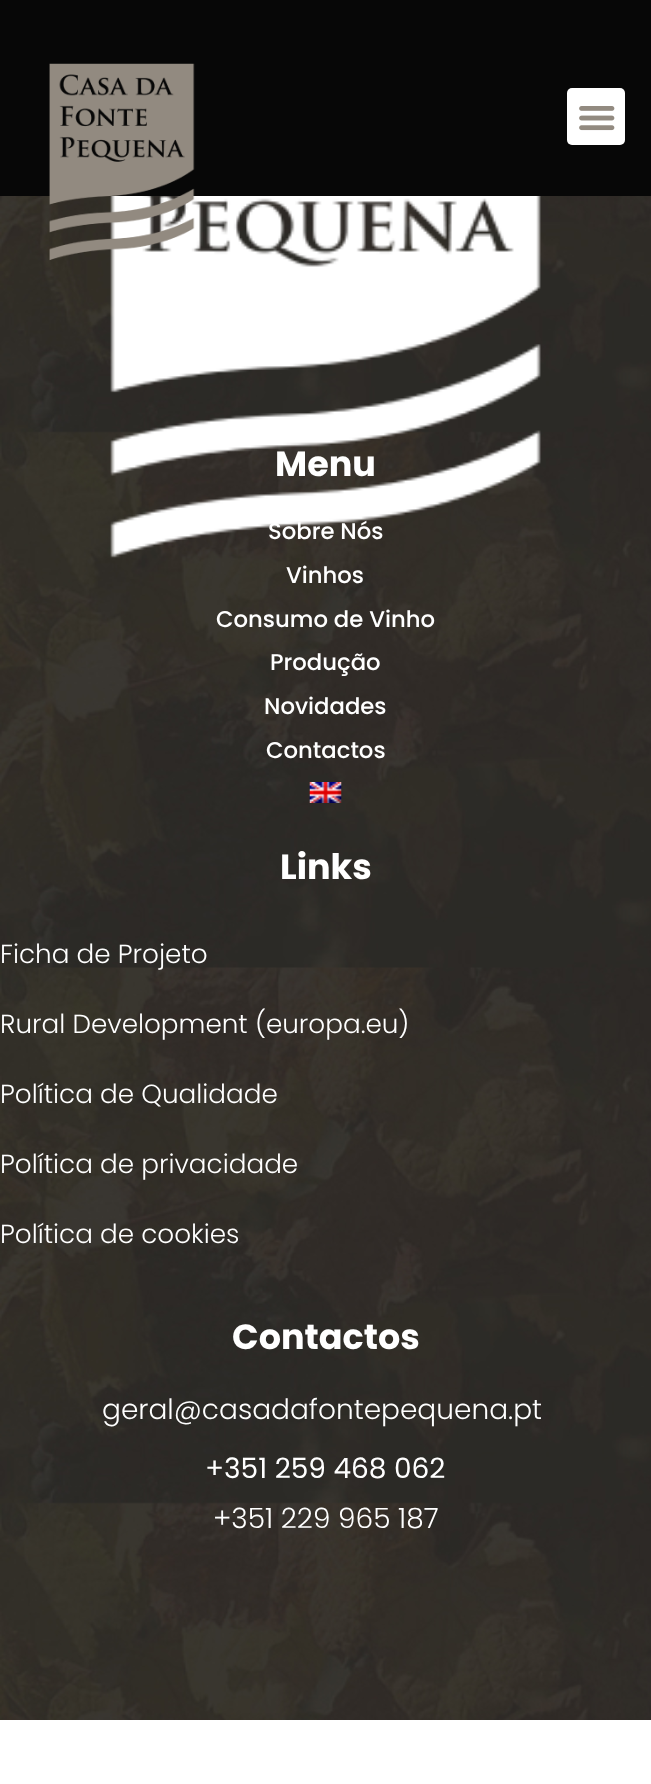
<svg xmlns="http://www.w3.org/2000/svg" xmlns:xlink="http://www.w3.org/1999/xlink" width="651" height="1784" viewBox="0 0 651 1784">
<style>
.cls-1{font:bold 35px Poppins;fill:#ffffff}
.cls-2{font:500 22.75px Poppins;fill:#ffffff}
.cls-3{font:300 26.25px Poppins;fill:#ffffff}
.cls-4{font:300 28px Poppins;fill:#ffffff}
.cls-5{font:28px Poppins;fill:#ffffff}
</style>
<rect width="100%" height="100%" fill="#ffffff"/>
<rect fill="#070707" x="0" y="0" width="651" height="196"/>
<image xlink:href="image2.png" x="0" y="196" width="651" height="1524"/>
<image xlink:href="image3.png" x="110" y="196" width="431" height="362"/>
<image xlink:href="image0.png" x="49" y="63" width="146" height="198"/>
<rect fill="#ffffff" x="567" y="88" width="58" height="57" rx="5"/>
<image xlink:href="image1.png" x="579" y="106" width="36" height="25"/>
<image xlink:href="image4.png" x="309" y="782" width="33" height="21"/>
<text class="cls-1" x="275" y="476">Menu</text>
<text class="cls-2" x="268" y="539">Sobre Nós</text>
<text class="cls-2" x="286" y="583">Vinhos</text>
<text class="cls-2" x="216" y="627">Consumo de Vinho</text>
<text class="cls-2" x="270" y="670">Produção</text>
<text class="cls-2" x="264" y="714">Novidades</text>
<text class="cls-2" x="266" y="758">Contactos</text>
<text class="cls-1" x="280" y="879">Links</text>
<text class="cls-3" x="0" y="963">Ficha de Projeto</text>
<text class="cls-3" x="0" y="1033">Rural Development (europa.eu)</text>
<text class="cls-3" x="0" y="1103">Política de Qualidade</text>
<text class="cls-3" x="0" y="1173">Política de privacidade</text>
<text class="cls-3" x="0" y="1243">Política de cookies</text>
<text class="cls-1" x="232" y="1349">Contactos</text>
<text class="cls-4" x="102" y="1419">geral@casadafontepequena.pt</text>
<text class="cls-5" x="205" y="1478">+351 259 468 062</text>
<text class="cls-4" x="213" y="1528">+351 229 965 187</text>
</svg>
